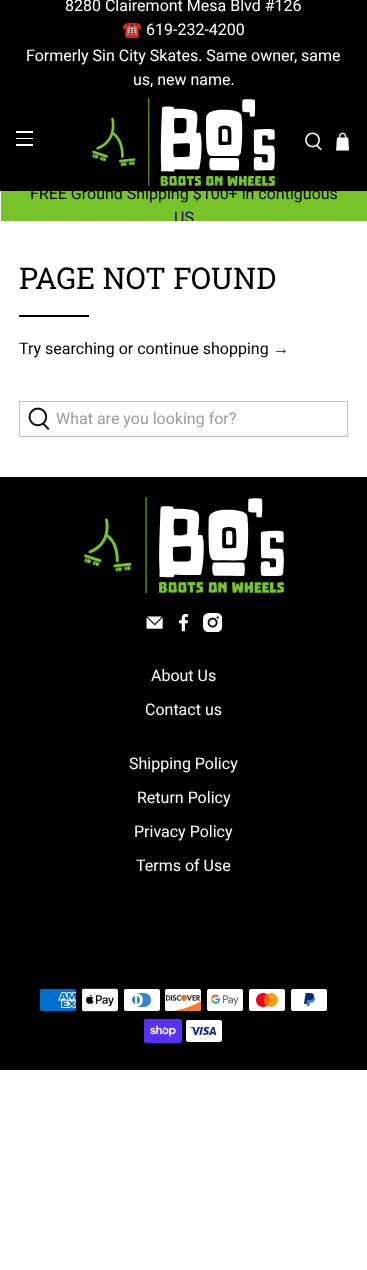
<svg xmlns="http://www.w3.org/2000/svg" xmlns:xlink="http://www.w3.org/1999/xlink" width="367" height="1270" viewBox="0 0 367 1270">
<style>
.cls-1{font:16px Roboto;fill:#ffffff}
.cls-2{font:16px Noto Color Emoji;fill:#ffffff}
.cls-3{font:16px Roboto;fill:#000000}
.cls-4{font:30px Roboto Slab;fill:#000000}
.cls-5{font:16px Liberation Sans;fill:#000000}
.cls-6{font:16px Roboto;fill:#9b9b9b}
</style>
<defs>
<clipPath id="clip1"><rect x="0" y="191" width="367" height="30"/></clipPath>
</defs>
<rect width="100%" height="100%" fill="#ffffff"/>
<rect fill="#000000" x="0" y="0" width="367" height="191"/>
<rect fill="#ffffff" x="16" y="131" width="17" height="2"/>
<rect fill="#ffffff" x="16" y="138" width="17" height="1"/>
<rect fill="#ffffff" x="16" y="144" width="17" height="2"/>
<image xlink:href="image0.png" x="92" y="98" width="183" height="88"/>
<image xlink:href="image1.png" x="305" y="132" width="17" height="19"/>
<image xlink:href="image2.png" x="336" y="132" width="13" height="19"/>
<rect fill="#76c429" x="1" y="191" width="366" height="30"/>
<rect fill="#000000" x="19" y="315" width="70" height="2"/>
<rect fill="none" stroke="#c0c0c0" x="19.5" y="401.5" width="328" height="35"/>
<image xlink:href="image3.png" x="28" y="407" width="22" height="23"/>
<rect fill="#000000" x="0" y="477" width="367" height="593"/>
<image xlink:href="image4.png" x="84" y="497" width="200" height="96"/>
<image xlink:href="image5.png" x="146" y="616" width="17" height="13"/>
<image xlink:href="image6.png" x="179" y="614" width="10" height="18"/>
<image xlink:href="image7.png" x="203" y="613" width="19" height="19"/>
<image xlink:href="image8.png" x="40" y="989" width="36" height="22"/>
<image xlink:href="image9.png" x="82" y="988" width="36" height="24"/>
<image xlink:href="image10.png" x="124" y="989" width="36" height="22"/>
<image xlink:href="image11.png" x="165" y="989" width="37" height="22"/>
<image xlink:href="image12.png" x="207" y="989" width="36" height="22"/>
<image xlink:href="image13.png" x="249" y="989" width="36" height="22"/>
<image xlink:href="image14.png" x="291" y="989" width="36" height="22"/>
<image xlink:href="image15.png" x="144" y="1019" width="38" height="24"/>
<image xlink:href="image16.png" x="186" y="1020" width="36" height="22"/>
<text class="cls-1" x="65" y="11">8280 Clairemont Mesa Blvd #126</text>
<text class="cls-2" x="122" y="35">☎️</text>
<text class="cls-1" x="146" y="35">619-232-4200</text>
<text class="cls-1" x="26" y="61">Formerly Sin City Skates. Same owner, same</text>
<text class="cls-1" x="133" y="85">us, new name.</text>
<text class="cls-3" x="30" y="199">FREE Ground Shipping $100+ in contiguous</text>
<g clip-path="url(#clip1)">
<text class="cls-3" x="174" y="223">US</text>
</g>
<text class="cls-4" x="19" y="289">PAGE NOT FOUND</text>
<text class="cls-3" x="19" y="354">Try searching or continue shopping</text>
<text class="cls-5" x="273" y="354">→</text>
<text class="cls-6" x="56" y="424">What are you looking for?</text>
<text class="cls-1" x="151" y="681">About Us</text>
<text class="cls-1" x="145" y="715">Contact us</text>
<text class="cls-1" x="129" y="769">Shipping Policy</text>
<text class="cls-1" x="137" y="803">Return Policy</text>
<text class="cls-1" x="134" y="837">Privacy Policy</text>
<text class="cls-1" x="136" y="871">Terms of Use</text>
</svg>
